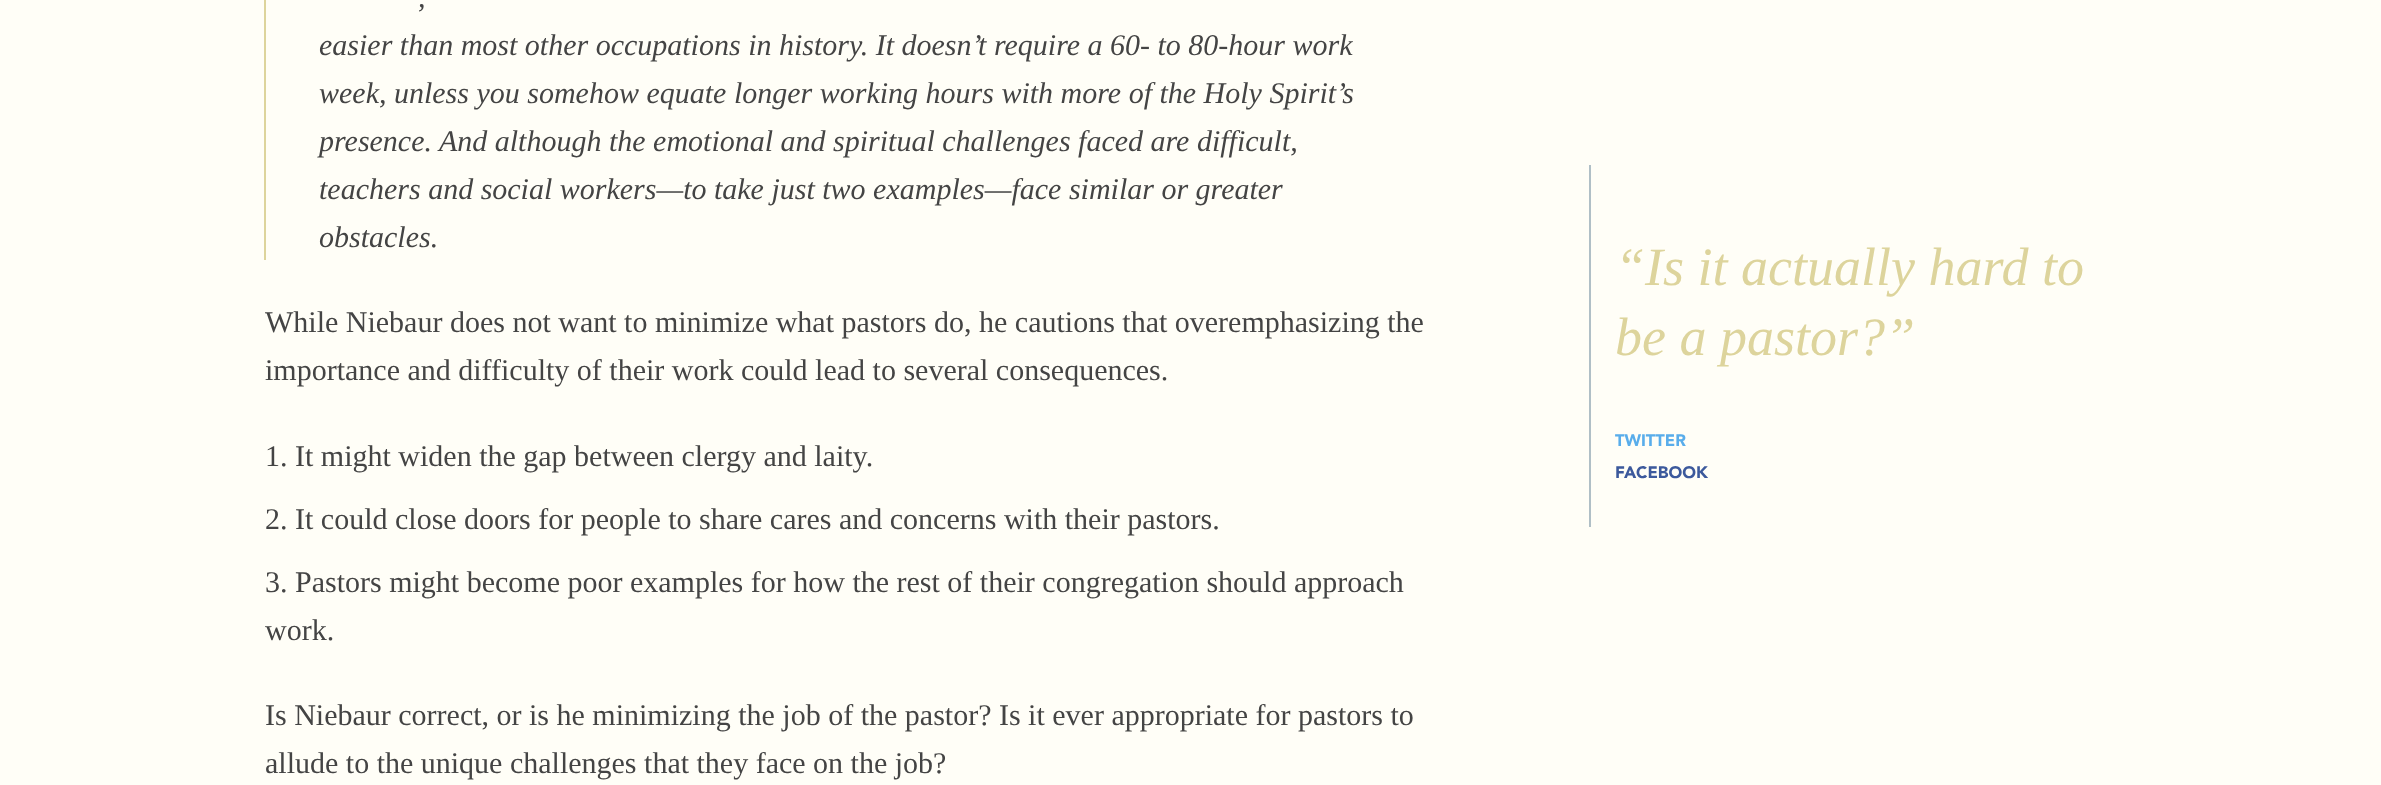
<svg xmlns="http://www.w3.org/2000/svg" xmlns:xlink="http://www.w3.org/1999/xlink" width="2381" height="785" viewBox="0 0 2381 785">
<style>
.cls-1{font:italic 30px Liberation Serif;fill:#444444}
.cls-2{font:30px Liberation Serif;fill:#444444}
.cls-3{font:italic 54px Liberation Serif;fill:#ddd49c}
.cls-4{font:900 16.5px Avenir;fill:#59adeb}
.cls-5{font:900 16.5px Avenir;fill:#3c599c}
</style>
<rect width="100%" height="100%" fill="#fffef7"/>
<rect fill="#ddd49c" x="264" y="0" width="2" height="260"/>
<rect fill="#b0bfc6" x="1589" y="165" width="2" height="362"/>
<text class="cls-1" x="418" y="7">,</text>
<text class="cls-1"><tspan x="319" y="55">easier than most other occupations in history. It doesn’t require a 60- to 80-hour work</tspan><tspan x="319" y="103">week, unless you somehow equate longer working hours with more of the Holy Spirit’s</tspan><tspan x="319" y="151">presence. And although the emotional and spiritual challenges faced are difficult,</tspan><tspan x="319" y="199">teachers and social workers—to take just two examples—face similar or greater</tspan><tspan x="319" y="247">obstacles.</tspan></text>
<text class="cls-2"><tspan x="265" y="332">While Niebaur does not want to minimize what pastors do, he cautions that overemphasizing the</tspan><tspan x="265" y="380">importance and difficulty of their work could lead to several consequences.</tspan></text>
<text class="cls-2" x="265" y="466">1. It might widen the gap between clergy and laity.</text>
<text class="cls-2" x="265" y="529">2. It could close doors for people to share cares and concerns with their pastors.</text>
<text class="cls-2"><tspan x="265" y="592">3. Pastors might become poor examples for how the rest of their congregation should approach</tspan><tspan x="265" y="640">work.</tspan></text>
<text class="cls-2"><tspan x="265" y="725">Is Niebaur correct, or is he minimizing the job of the pastor? Is it ever appropriate for pastors to</tspan><tspan x="265" y="773">allude to the unique challenges that they face on the job?</tspan></text>
<text class="cls-3"><tspan x="1615" y="285">“Is it actually hard to</tspan><tspan x="1615" y="355">be a pastor?”</tspan></text>
<text class="cls-4" x="1615" y="446">TWITTER</text>
<text class="cls-5" x="1615" y="478">FACEBOOK</text>
</svg>
